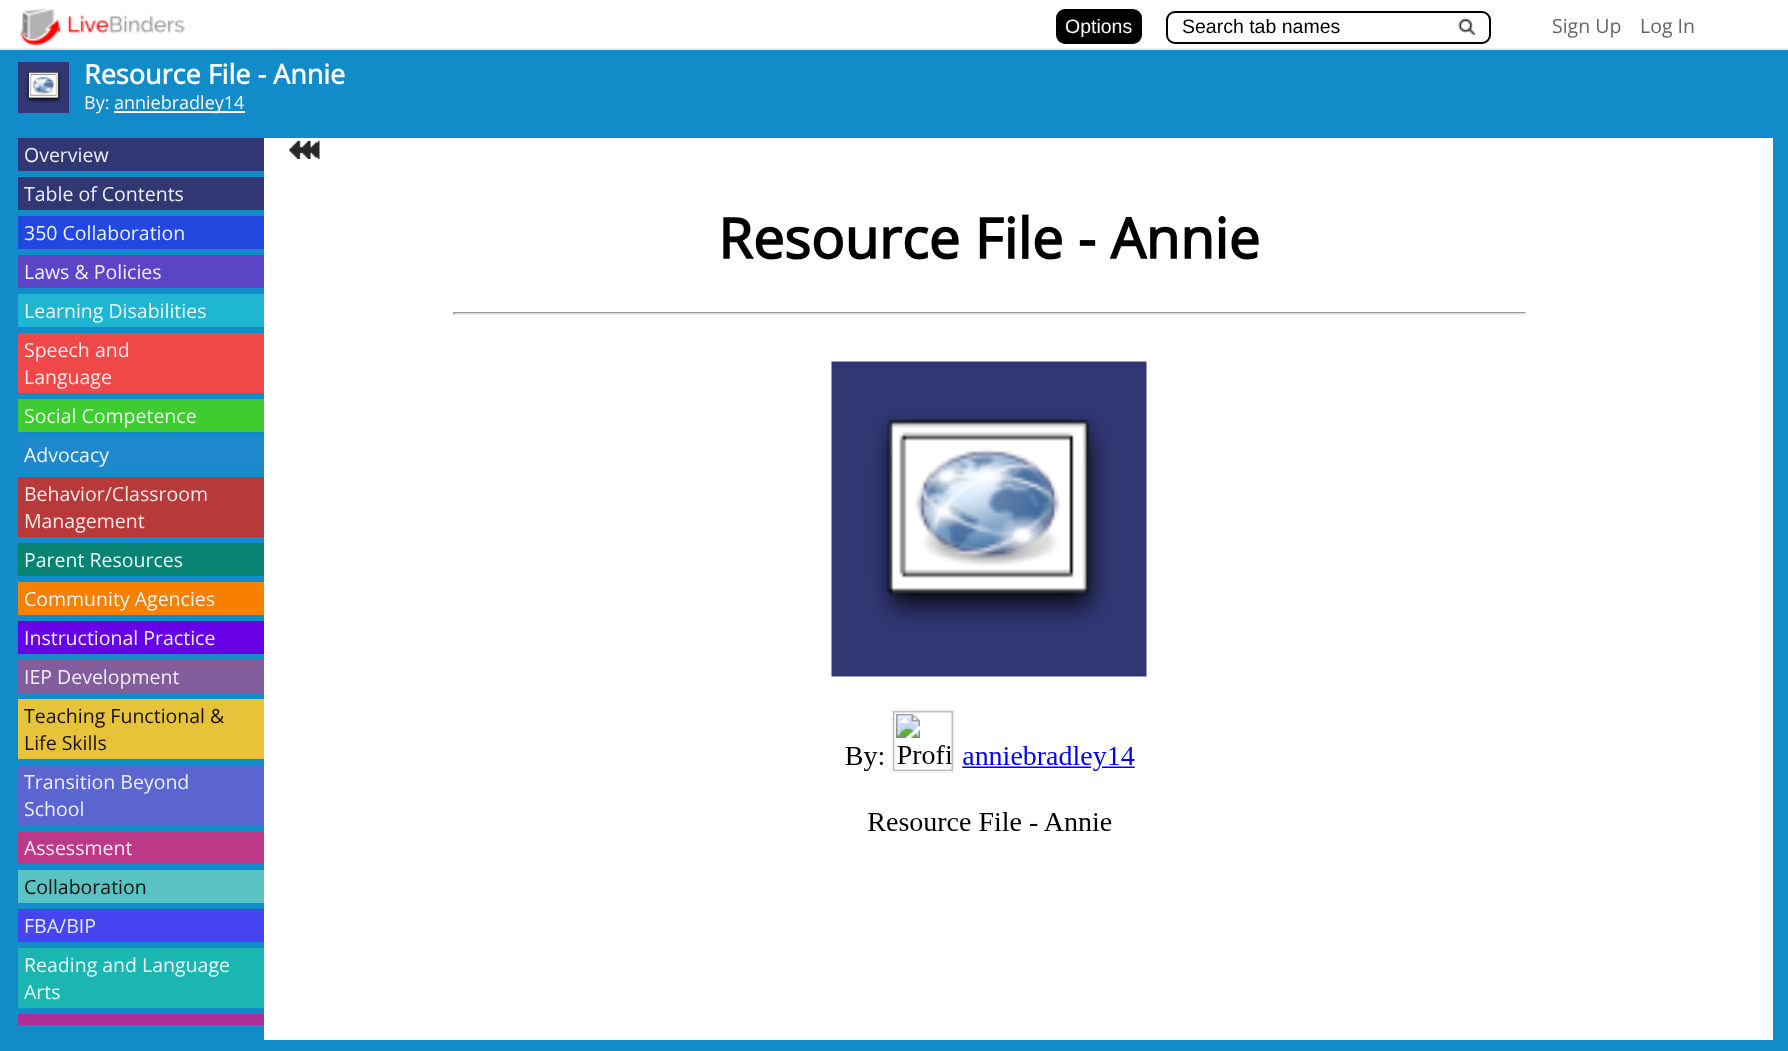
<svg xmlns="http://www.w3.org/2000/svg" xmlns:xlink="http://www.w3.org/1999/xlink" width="1788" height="1051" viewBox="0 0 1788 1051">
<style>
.cls-1{font:19.5px Liberation Sans;fill:#fafafa}
.cls-2{font:19.5px Liberation Sans;fill:#000000}
.cls-3{font:19.5px Open Sans;fill:#666666}
.cls-4{font:bold 27px Open Sans;fill:#fafafa}
.cls-5{font:18px Open Sans;fill:#fafafa}
.cls-6{font:19.5px Open Sans;fill:#edeff8}
.cls-7{font:19.5px Open Sans;fill:#e9fbfc}
.cls-8{font:19.5px Open Sans;fill:#fde7ea}
.cls-9{font:19.5px Open Sans;fill:#edfaea}
.cls-10{font:19.5px Open Sans;fill:#f3f2f2}
.cls-11{font:19.5px Open Sans;fill:#171003}
.cls-12{font:19.5px Open Sans;fill:#f9ebf5}
.cls-13{font:19.5px Open Sans;fill:#071311}
.cls-14{font:19.5px Open Sans;fill:#e7e9fe}
</style>
<rect width="100%" height="100%" fill="#128cc9"/>
<rect fill="#ffffff" x="0" y="0" width="1788" height="48"/>
<rect fill="#ebebeb" x="0" y="48" width="1788" height="2"/>
<image xlink:href="image0.png" x="20" y="9" width="165" height="37"/>
<rect fill="#000000" stroke="#000000" stroke-width="2" x="1057" y="10" width="84" height="33" rx="8"/>
<image xlink:href="image1.png" x="1457" y="17" width="19" height="20"/>
<rect fill="none" stroke="#000000" stroke-width="2" x="1167" y="12" width="323" height="31" rx="8"/>
<rect fill="#313773" x="18" y="62" width="51" height="51"/>
<image xlink:href="image2.png" x="26" y="71" width="35" height="32"/>
<rect fill="#fafafa" x="114" y="111" width="131" height="2"/>
<rect fill="#ffffff" x="264" y="138" width="1509" height="902"/>
<image xlink:href="image3.png" x="453" y="214" width="1073" height="617"/>
<rect fill="#313773" x="18" y="138" width="246" height="33"/>
<rect fill="#313773" x="18" y="177" width="246" height="33"/>
<rect fill="#2248e0" x="18" y="216" width="246" height="33"/>
<rect fill="#5c44c7" x="18" y="255" width="246" height="33"/>
<rect fill="#1fb6d1" x="18" y="294" width="246" height="33"/>
<rect fill="#f04848" x="18" y="333" width="246" height="60"/>
<rect fill="#3ecc31" x="18" y="399" width="246" height="33"/>
<rect fill="#1d89cc" x="18" y="438" width="246" height="33"/>
<rect fill="#b83939" x="18" y="477" width="246" height="60"/>
<rect fill="#088272" x="18" y="543" width="246" height="33"/>
<rect fill="#f78000" x="18" y="582" width="246" height="33"/>
<rect fill="#6700e6" x="18" y="621" width="246" height="33"/>
<rect fill="#835c9c" x="18" y="660" width="246" height="33"/>
<rect fill="#e6c339" x="18" y="699" width="246" height="60"/>
<rect fill="#5b65cf" x="18" y="765" width="246" height="60"/>
<rect fill="#bd3988" x="18" y="831" width="246" height="33"/>
<rect fill="#59c2c2" x="18" y="870" width="246" height="33"/>
<rect fill="#4744f2" x="18" y="909" width="246" height="33"/>
<rect fill="#1bb5b2" x="18" y="948" width="246" height="60"/>
<rect fill="#ad2f96" x="18" y="1014" width="246" height="11"/>
<image xlink:href="image4.png" x="289" y="141" width="31" height="18"/>
<text class="cls-1" x="1065" y="33">Options</text>
<text class="cls-2" x="1182" y="33">Search tab names</text>
<text class="cls-3" x="1552" y="33">Sign Up</text>
<text class="cls-3" x="1640" y="33">Log In</text>
<text class="cls-4" x="84" y="84">Resource File - Annie</text>
<text class="cls-5" x="84" y="109">By:</text>
<text class="cls-5" x="114" y="109">anniebradley14</text>
<text class="cls-6" x="24" y="162">Overview</text>
<text class="cls-6" x="24" y="201">Table of Contents</text>
<text class="cls-6" x="24" y="240">350 Collaboration</text>
<text class="cls-6" x="24" y="279">Laws &amp; Policies</text>
<text class="cls-7" x="24" y="318">Learning Disabilities</text>
<text class="cls-8"><tspan x="24" y="357">Speech and</tspan><tspan x="24" y="384">Language</tspan></text>
<text class="cls-9" x="24" y="423">Social Competence</text>
<text class="cls-7" x="24" y="462">Advocacy</text>
<text class="cls-8"><tspan x="24" y="501">Behavior/Classroom</tspan><tspan x="24" y="528">Management</tspan></text>
<text class="cls-7" x="24" y="567">Parent Resources</text>
<text class="cls-10" x="24" y="606">Community Agencies</text>
<text class="cls-6" x="24" y="645">Instructional Practice</text>
<text class="cls-6" x="24" y="684">IEP Development</text>
<text class="cls-11"><tspan x="24" y="723">Teaching Functional &amp;</tspan><tspan x="24" y="750">Life Skills</tspan></text>
<text class="cls-6"><tspan x="24" y="789">Transition Beyond</tspan><tspan x="24" y="816">School</tspan></text>
<text class="cls-12" x="24" y="855">Assessment</text>
<text class="cls-13" x="24" y="894">Collaboration</text>
<text class="cls-14" x="24" y="933">FBA/BIP</text>
<text class="cls-7"><tspan x="24" y="972">Reading and Language</tspan><tspan x="24" y="999">Arts</tspan></text>
</svg>
